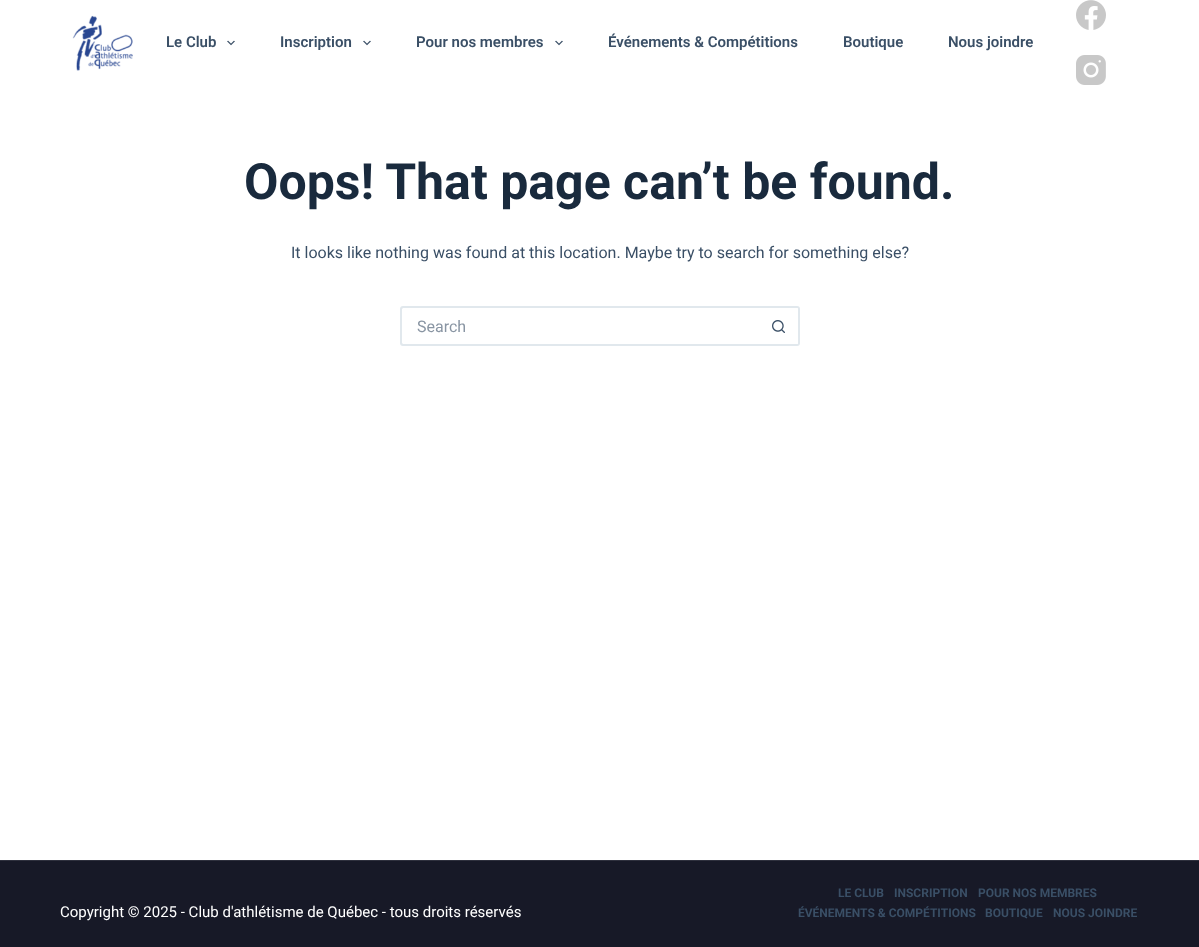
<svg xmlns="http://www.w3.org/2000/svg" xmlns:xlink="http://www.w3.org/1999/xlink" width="1199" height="947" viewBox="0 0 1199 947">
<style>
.cls-1{font:600 15px Roboto;fill:#3a4f66}
.cls-2{font:bold 50px Roboto;fill:#192a3d}
.cls-3{font:16px Roboto;fill:#3a4f66}
.cls-4{font:16px Roboto;fill:#8995a3}
.cls-5{font:15px Roboto;fill:#ffffff}
.cls-6{font:bold 12px Roboto;fill:#3a4f66}
</style>
<rect width="100%" height="100%" fill="#ffffff"/>
<image xlink:href="image0.png" x="72" y="15" width="61" height="56"/>
<image xlink:href="image1.png" x="227" y="40" width="8" height="6"/>
<image xlink:href="image1.png" x="363" y="40" width="8" height="6"/>
<image xlink:href="image1.png" x="555" y="40" width="8" height="6"/>
<image xlink:href="image2.png" x="1076" y="0" width="30" height="30"/>
<image xlink:href="image3.png" x="1076" y="55" width="30" height="30"/>
<path fill="#e1e8ed" fill-rule="evenodd" d="M403 306H760V346H403C401 346 400 345 400 343V309C400 307 401 306 403 306ZM403 308H760V344H403L402 343V309Z"/>
<path fill="#e1e8ed" fill-rule="evenodd" d="M760 306H797C799 306 800 307 800 309V343C800 345 799 346 797 346H760ZM760 308H797C798 308 798 308 798 309V343C798 344 798 344 797 344H760Z"/>
<image xlink:href="image4.png" x="772" y="320" width="13" height="13"/>
<rect fill="#171927" x="0" y="861" width="1199" height="86"/>
<rect fill="#2e303d" x="0" y="860" width="1199" height="1"/>
<text class="cls-1" x="166" y="47">Le Club</text>
<text class="cls-1" x="280" y="47">Inscription</text>
<text class="cls-1" x="416" y="47">Pour nos membres</text>
<text class="cls-1" x="608" y="47">Événements &amp; Compétitions</text>
<text class="cls-1" x="843" y="47">Boutique</text>
<text class="cls-1" x="948" y="47">Nous joindre</text>
<text class="cls-2" x="244" y="199">Oops! That page can’t be found.</text>
<text class="cls-3" x="291" y="258">It looks like nothing was found at this location. Maybe try to search for something else?</text>
<text class="cls-4" x="417" y="332">Search</text>
<text class="cls-5" x="60" y="917">Copyright © 2025 - Club d'athlétisme de Québec - tous droits réservés</text>
<text class="cls-6" x="838" y="897">LE CLUB</text>
<text class="cls-6" x="894" y="897">INSCRIPTION</text>
<text class="cls-6" x="978" y="897">POUR NOS MEMBRES</text>
<text class="cls-6" x="798" y="917">ÉVÉNEMENTS &amp; COMPÉTITIONS</text>
<text class="cls-6" x="985" y="917">BOUTIQUE</text>
<text class="cls-6" x="1053" y="917">NOUS JOINDRE</text>
</svg>
